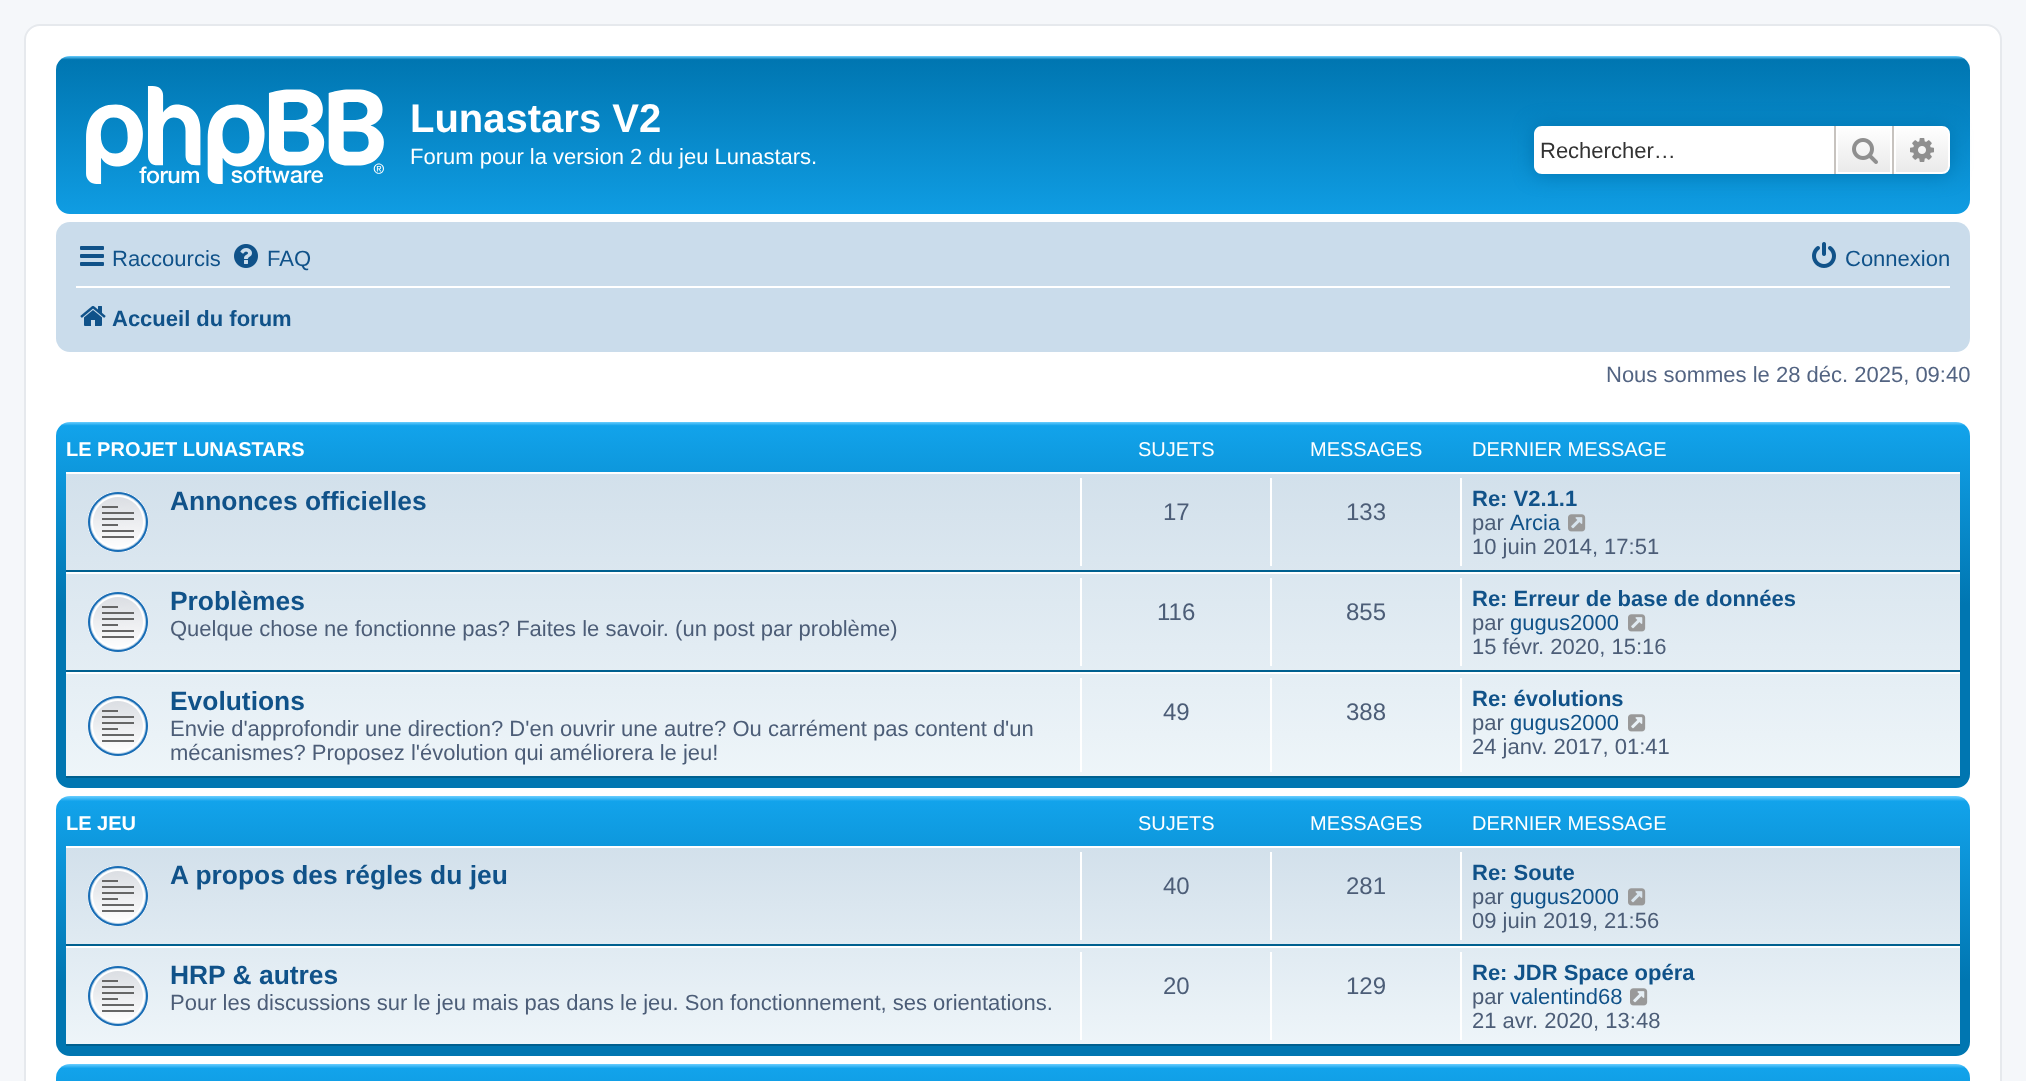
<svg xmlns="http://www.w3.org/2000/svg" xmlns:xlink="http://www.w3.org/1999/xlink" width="2026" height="1081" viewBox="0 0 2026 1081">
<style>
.cls-1{font:bold 40px Liberation Sans;fill:#ffffff}
.cls-2{font:22px Liberation Sans;fill:#ffffff}
.cls-3{font:22px Liberation Sans;fill:#333333}
.cls-4{font:22px Liberation Sans;fill:#105289}
.cls-5{font:bold 22px Liberation Sans;fill:#105289}
.cls-6{font:22px Liberation Sans;fill:#536482}
.cls-7{font:bold 20px Liberation Sans;fill:#ffffff}
.cls-8{font:20px Liberation Sans;fill:#ffffff}
.cls-9{font:bold 26.4px Liberation Sans;fill:#105289}
.cls-10{font:24px Liberation Sans;fill:#4c5d77}
.cls-11{font:22px Liberation Sans;fill:#4c5d77}
</style>
<defs>
<linearGradient id="g1" gradientUnits="userSpaceOnUse" x1="1013" y1="56" x2="1013" y2="240"><stop offset="0" stop-color="#6aceff"/><stop offset="0.02" stop-color="#0076b1"/><stop offset="1" stop-color="#12a3eb"/></linearGradient>
<linearGradient id="g2" gradientUnits="userSpaceOnUse" x1="1864" y1="126" x2="1864" y2="174"><stop offset="0" stop-color="#ffffff"/><stop offset="1" stop-color="#e9e9e9"/></linearGradient>
<linearGradient id="g3" gradientUnits="userSpaceOnUse" x1="1922" y1="126" x2="1922" y2="174"><stop offset="0" stop-color="#ffffff"/><stop offset="1" stop-color="#e9e9e9"/></linearGradient>
<linearGradient id="g4" gradientUnits="userSpaceOnUse" x1="1013" y1="422" x2="1013" y2="788"><stop offset="0" stop-color="#6aceff"/><stop offset="0.01" stop-color="#12a3eb"/><stop offset="0.5" stop-color="#0076b1"/><stop offset="1" stop-color="#0076b1"/></linearGradient>
<linearGradient id="g5" gradientUnits="userSpaceOnUse" x1="1013" y1="472" x2="1013" y2="778"><stop offset="0" stop-color="#d2e0eb"/><stop offset="1" stop-color="#eef5f9"/></linearGradient>
<linearGradient id="g6" gradientUnits="userSpaceOnUse" x1="1013" y1="796" x2="1013" y2="1056"><stop offset="0" stop-color="#6aceff"/><stop offset="0.02" stop-color="#12a3eb"/><stop offset="0.71" stop-color="#0076b1"/><stop offset="1" stop-color="#0076b1"/></linearGradient>
<linearGradient id="g7" gradientUnits="userSpaceOnUse" x1="1013" y1="846" x2="1013" y2="1046"><stop offset="0" stop-color="#d2e0eb"/><stop offset="1" stop-color="#eef5f9"/></linearGradient>
<linearGradient id="g8" gradientUnits="userSpaceOnUse" x1="1013" y1="1064" x2="1013" y2="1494"><stop offset="0" stop-color="#6aceff"/><stop offset="0.01" stop-color="#12a3eb"/><stop offset="0.43" stop-color="#0076b1"/><stop offset="1" stop-color="#0076b1"/></linearGradient>
</defs>
<rect width="100%" height="100%" fill="#f5f7fa"/>
<rect fill="#ffffff" stroke="#e6e9ed" stroke-width="2" x="25" y="25" width="1976" height="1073" rx="15"/>
<rect fill="url(#g1)" x="56" y="56" width="1914" height="158" rx="14"/>
<image xlink:href="image0.png" x="86" y="86" width="298" height="98"/>
<rect fill="#0075b0" filter="blur(10px)" x="1534" y="126" width="416" height="48" rx="8"/>
<path fill="#ffffff" d="M1542 126H1834V174H1542C1537.5 174 1534 170.5 1534 166V134C1534 129.5 1537.5 126 1542 126Z"/>
<rect fill="url(#g2)" x="1838" y="128" width="52" height="44"/>
<rect fill="none" stroke="#ffffff" stroke-width="2" x="1837" y="127" width="54" height="46"/>
<rect fill="#c7c3bf" x="1892" y="126" width="2" height="48"/>
<rect fill="#c7c3bf" x="1834" y="126" width="2" height="48"/>
<image xlink:href="image1.png" x="1852" y="138" width="26" height="26"/>
<path fill="url(#g3)" stroke="#ffffff" stroke-width="2" d="M1895 127H1942C1946 127 1949 130 1949 134V166C1949 170 1946 173 1942 173H1895Z"/>
<image xlink:href="image2.png" x="1910" y="138" width="24" height="24"/>
<rect fill="#cadceb" x="56" y="222" width="1914" height="130" rx="14"/>
<image xlink:href="image3.png" x="80" y="246" width="24" height="20"/>
<image xlink:href="image4.png" x="234" y="244" width="24" height="24"/>
<image xlink:href="image5.png" x="1812" y="242" width="24" height="26"/>
<rect fill="#ffffff" x="76" y="286" width="1874" height="2"/>
<image xlink:href="image6.png" x="80" y="306" width="26" height="20"/>
<rect fill="url(#g4)" x="56" y="422" width="1914" height="366" rx="14"/>
<rect fill="url(#g5)" x="66" y="474" width="1894" height="302"/>
<rect fill="#ffffff" x="66" y="472" width="1894" height="2"/>
<rect fill="#00608f" x="66" y="570" width="1894" height="2"/>
<image xlink:href="image7.png" x="88" y="492" width="60" height="60"/>
<rect fill="#ffffff" x="1080" y="478" width="2" height="88"/>
<rect fill="#ffffff" x="1270" y="478" width="2" height="88"/>
<rect fill="#ffffff" x="1460" y="478" width="2" height="88"/>
<image xlink:href="image8.png" x="1568" y="514" width="18" height="18"/>
<rect fill="#ffffff" x="66" y="572" width="1894" height="2"/>
<rect fill="#00608f" x="66" y="670" width="1894" height="2"/>
<image xlink:href="image9.png" x="88" y="592" width="60" height="60"/>
<rect fill="#ffffff" x="1080" y="578" width="2" height="88"/>
<rect fill="#ffffff" x="1270" y="578" width="2" height="88"/>
<rect fill="#ffffff" x="1460" y="578" width="2" height="88"/>
<image xlink:href="image10.png" x="1628" y="614" width="18" height="18"/>
<rect fill="#ffffff" x="66" y="672" width="1894" height="2"/>
<rect fill="#00608f" x="66" y="776" width="1894" height="2"/>
<image xlink:href="image11.png" x="88" y="696" width="60" height="60"/>
<rect fill="#ffffff" x="1080" y="678" width="2" height="94"/>
<rect fill="#ffffff" x="1270" y="678" width="2" height="94"/>
<rect fill="#ffffff" x="1460" y="678" width="2" height="94"/>
<image xlink:href="image12.png" x="1628" y="714" width="18" height="18"/>
<rect fill="url(#g6)" x="56" y="796" width="1914" height="260" rx="14"/>
<rect fill="url(#g7)" x="66" y="848" width="1894" height="196"/>
<rect fill="#ffffff" x="66" y="846" width="1894" height="2"/>
<rect fill="#00608f" x="66" y="944" width="1894" height="2"/>
<image xlink:href="image13.png" x="88" y="866" width="60" height="60"/>
<rect fill="#ffffff" x="1080" y="852" width="2" height="88"/>
<rect fill="#ffffff" x="1270" y="852" width="2" height="88"/>
<rect fill="#ffffff" x="1460" y="852" width="2" height="88"/>
<image xlink:href="image14.png" x="1628" y="888" width="18" height="18"/>
<rect fill="#ffffff" x="66" y="946" width="1894" height="2"/>
<rect fill="#00608f" x="66" y="1044" width="1894" height="2"/>
<image xlink:href="image15.png" x="88" y="966" width="60" height="60"/>
<rect fill="#ffffff" x="1080" y="952" width="2" height="88"/>
<rect fill="#ffffff" x="1270" y="952" width="2" height="88"/>
<rect fill="#ffffff" x="1460" y="952" width="2" height="88"/>
<image xlink:href="image16.png" x="1630" y="988" width="18" height="18"/>
<rect fill="url(#g8)" x="56" y="1064" width="1914" height="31" rx="14"/>
<text class="cls-1" x="410" y="132">Lunastars V2</text>
<text class="cls-2" x="410" y="164">Forum pour la version 2 du jeu Lunastars.</text>
<text class="cls-3" x="1540" y="158">Rechercher…</text>
<text class="cls-4" x="112" y="266">Raccourcis</text>
<text class="cls-4" x="267" y="266">FAQ</text>
<text class="cls-4" x="1845" y="266">Connexion</text>
<text class="cls-5" x="112" y="326">Accueil du forum</text>
<text class="cls-6" x="1606" y="382">Nous sommes le 28 déc. 2025, 09:40</text>
<text class="cls-7" x="66" y="456">LE PROJET LUNASTARS</text>
<text class="cls-8" x="1138" y="456">SUJETS</text>
<text class="cls-8" x="1310" y="456">MESSAGES</text>
<text class="cls-8" x="1472" y="456">DERNIER MESSAGE</text>
<text class="cls-9" x="170" y="510">Annonces officielles</text>
<text class="cls-10" x="1163" y="520">17</text>
<text class="cls-10" x="1346" y="520">133</text>
<text class="cls-5" x="1472" y="506">Re: V2.1.1</text>
<text class="cls-11" x="1472" y="530">par</text>
<text class="cls-4" x="1510" y="530">Arcia</text>
<text class="cls-11" x="1472" y="554">10 juin 2014, 17:51</text>
<text class="cls-9" x="170" y="610">Problèmes</text>
<text class="cls-11" x="170" y="636">Quelque chose ne fonctionne pas? Faites le savoir. (un post par problème)</text>
<text class="cls-10" x="1157" y="620">116</text>
<text class="cls-10" x="1346" y="620">855</text>
<text class="cls-5" x="1472" y="606">Re: Erreur de base de données</text>
<text class="cls-11" x="1472" y="630">par</text>
<text class="cls-4" x="1510" y="630">gugus2000</text>
<text class="cls-11" x="1472" y="654">15 févr. 2020, 15:16</text>
<text class="cls-9" x="170" y="710">Evolutions</text>
<text class="cls-11"><tspan x="170" y="736">Envie d'approfondir une direction? D'en ouvrir une autre? Ou carrément pas content d'un</tspan><tspan x="170" y="760">mécanismes? Proposez l'évolution qui améliorera le jeu!</tspan></text>
<text class="cls-10" x="1163" y="720">49</text>
<text class="cls-10" x="1346" y="720">388</text>
<text class="cls-5" x="1472" y="706">Re: évolutions</text>
<text class="cls-11" x="1472" y="730">par</text>
<text class="cls-4" x="1510" y="730">gugus2000</text>
<text class="cls-11" x="1472" y="754">24 janv. 2017, 01:41</text>
<text class="cls-7" x="66" y="830">LE JEU</text>
<text class="cls-8" x="1138" y="830">SUJETS</text>
<text class="cls-8" x="1310" y="830">MESSAGES</text>
<text class="cls-8" x="1472" y="830">DERNIER MESSAGE</text>
<text class="cls-9" x="170" y="884">A propos des régles du jeu</text>
<text class="cls-10" x="1163" y="894">40</text>
<text class="cls-10" x="1346" y="894">281</text>
<text class="cls-5" x="1472" y="880">Re: Soute</text>
<text class="cls-11" x="1472" y="904">par</text>
<text class="cls-4" x="1510" y="904">gugus2000</text>
<text class="cls-11" x="1472" y="928">09 juin 2019, 21:56</text>
<text class="cls-9" x="170" y="984">HRP &amp; autres</text>
<text class="cls-11" x="170" y="1010">Pour les discussions sur le jeu mais pas dans le jeu. Son fonctionnement, ses orientations.</text>
<text class="cls-10" x="1163" y="994">20</text>
<text class="cls-10" x="1346" y="994">129</text>
<text class="cls-5" x="1472" y="980">Re: JDR Space opéra</text>
<text class="cls-11" x="1472" y="1004">par</text>
<text class="cls-4" x="1510" y="1004">valentind68</text>
<text class="cls-11" x="1472" y="1028">21 avr. 2020, 13:48</text>
</svg>
